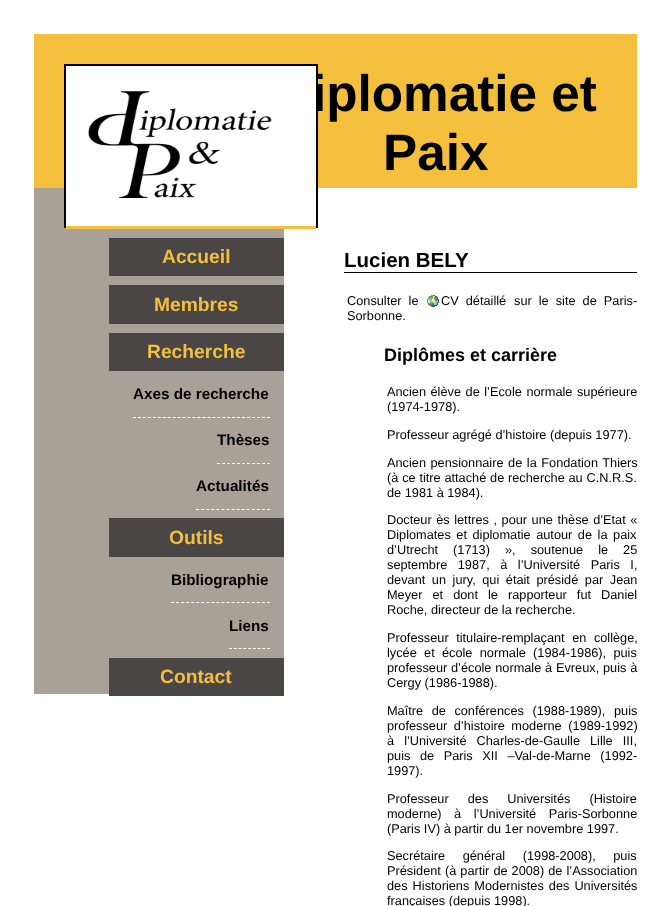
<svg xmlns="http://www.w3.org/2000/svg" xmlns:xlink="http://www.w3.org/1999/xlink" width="671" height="906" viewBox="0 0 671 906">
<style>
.cls-1{font:bold 51.25px Liberation Sans;fill:#000000}
.cls-2{font:bold 19.25px Liberation Sans;fill:#f4bf3d}
.cls-3{font:bold 15.25px Liberation Sans;fill:#000000}
.cls-4{font:bold 20.5px Liberation Sans;fill:#000000}
.cls-5{font:12.75px Liberation Sans;fill:#000000}
.cls-6{font:bold 18px Liberation Sans;fill:#000000}
</style>
<rect width="100%" height="100%" fill="#ffffff"/>
<rect fill="#f4bf3d" x="34" y="34" width="603" height="154"/>
<rect fill="#a8a197" x="34" y="188" width="250" height="506"/>
<rect fill="none" stroke="#000000" stroke-width="2" x="65" y="65" width="252" height="162"/>
<rect fill="#f4bf3d" x="66" y="226" width="250" height="3"/>
<rect fill="#4b4646" x="109" y="238" width="175" height="38"/>
<rect fill="#4b4646" x="109" y="285" width="175" height="39"/>
<rect fill="#4b4646" x="109" y="333" width="175" height="38"/>
<path fill="none" stroke="#ffffff" stroke-dasharray="3 1.96" d="M133 417.5H270"/>
<path fill="none" stroke="#ffffff" stroke-dasharray="3 2" d="M217 463.5H270"/>
<path fill="none" stroke="#ffffff" stroke-dasharray="3 2.07" d="M196 509.5H270"/>
<rect fill="#4b4646" x="109" y="518" width="175" height="39"/>
<path fill="none" stroke="#ffffff" stroke-dasharray="3 2.05" d="M171 602.5H270"/>
<path fill="none" stroke="#ffffff" stroke-dasharray="3 1.75" d="M229 648.5H270"/>
<rect fill="#4b4646" x="109" y="658" width="175" height="38"/>
<rect fill="#000000" x="344" y="272" width="293" height="1"/>
<image xlink:href="image1.png" x="427" y="295" width="12" height="12"/>
<text class="cls-1" x="312" y="111">iplomatie et</text>
<image xlink:href="image0.png" x="66" y="66" width="250" height="160"/>
<text class="cls-1" x="383" y="170">Paix</text>
<text class="cls-2" x="162" y="263">Accueil</text>
<text class="cls-2" x="154" y="311">Membres</text>
<text class="cls-2" x="147" y="358">Recherche</text>
<text class="cls-3" x="133" y="399">Axes de recherche</text>
<text class="cls-3" x="217" y="445">Thèses</text>
<text class="cls-3" x="196" y="491">Actualités</text>
<text class="cls-2" x="169" y="544">Outils</text>
<text class="cls-3" x="171" y="585">Bibliographie</text>
<text class="cls-3" x="229" y="631">Liens</text>
<text class="cls-2" x="160" y="683">Contact</text>
<text class="cls-4" x="344" y="267">Lucien BELY</text>
<text class="cls-5" x="347" y="305" word-spacing="3.5">Consulter le</text>
<text class="cls-5" x="441" y="305" word-spacing="3.5">CV détaillé</text>
<text class="cls-5" x="514" y="305" word-spacing="3.5">sur le site de Paris-</text>
<text class="cls-5" x="347" y="320">Sorbonne.</text>
<text class="cls-6" x="384" y="361">Diplômes et carrière</text>
<text class="cls-5"><tspan x="387" y="396" word-spacing="1">Ancien élève de l’Ecole normale supérieure</tspan><tspan x="387" y="411">(1974-1978).</tspan></text>
<text class="cls-5" x="387" y="439">Professeur agrégé d’histoire (depuis 1977).</text>
<text class="cls-5"><tspan x="387" y="467" word-spacing="1">Ancien pensionnaire de la Fondation Thiers</tspan><tspan x="387" y="482" word-spacing="0.25">(à ce titre attaché de recherche au C.N.R.S.</tspan><tspan x="387" y="497">de 1981 à 1984).</tspan></text>
<text class="cls-5"><tspan x="387" y="524" word-spacing="1">Docteur ès lettres , pour une thèse d’Etat «</tspan><tspan x="387" y="539" word-spacing="2">Diplomates et diplomatie autour de la paix</tspan><tspan x="387" y="554" word-spacing="11.5">d’Utrecht (1713) », soutenue le 25</tspan><tspan x="387" y="569" word-spacing="7">septembre 1987, à l’Université Paris I,</tspan><tspan x="387" y="584" word-spacing="3">devant un jury, qui était présidé par Jean</tspan><tspan x="387" y="599" word-spacing="6.5">Meyer et dont le rapporteur fut Daniel</tspan><tspan x="387" y="614">Roche, directeur de la recherche.</tspan></text>
<text class="cls-5"><tspan x="387" y="642" word-spacing="4">Professeur titulaire-remplaçant en collège,</tspan><tspan x="387" y="657" word-spacing="3.75">lycée et école normale (1984-1986), puis</tspan><tspan x="387" y="672" word-spacing="0.25">professeur d’école normale à Evreux, puis à</tspan><tspan x="387" y="687">Cergy (1986-1988).</tspan></text>
<text class="cls-5"><tspan x="387" y="715" word-spacing="5">Maître de conférences (1988-1989), puis</tspan><tspan x="387" y="730" word-spacing="3">professeur d’histoire moderne (1989-1992)</tspan><tspan x="387" y="745" word-spacing="6.5">à l’Université Charles-de-Gaulle Lille III,</tspan><tspan x="387" y="760" word-spacing="6">puis de Paris XII –Val-de-Marne (1992-</tspan><tspan x="387" y="775">1997).</tspan></text>
<text class="cls-5"><tspan x="387" y="803" word-spacing="15.5">Professeur des Universités (Histoire</tspan><tspan x="387" y="818" word-spacing="9">moderne) à l’Université Paris-Sorbonne</tspan><tspan x="387" y="833">(Paris IV) à partir du 1er novembre 1997.</tspan></text>
<text class="cls-5"><tspan x="387" y="860" word-spacing="14">Secrétaire général (1998-2008), puis</tspan><tspan x="387" y="875" word-spacing="0.5">Président (à partir de 2008) de l’Association</tspan><tspan x="387" y="890" word-spacing="1.5">des Historiens Modernistes des Universités</tspan><tspan x="387" y="905">françaises (depuis 1998).</tspan></text>
</svg>
